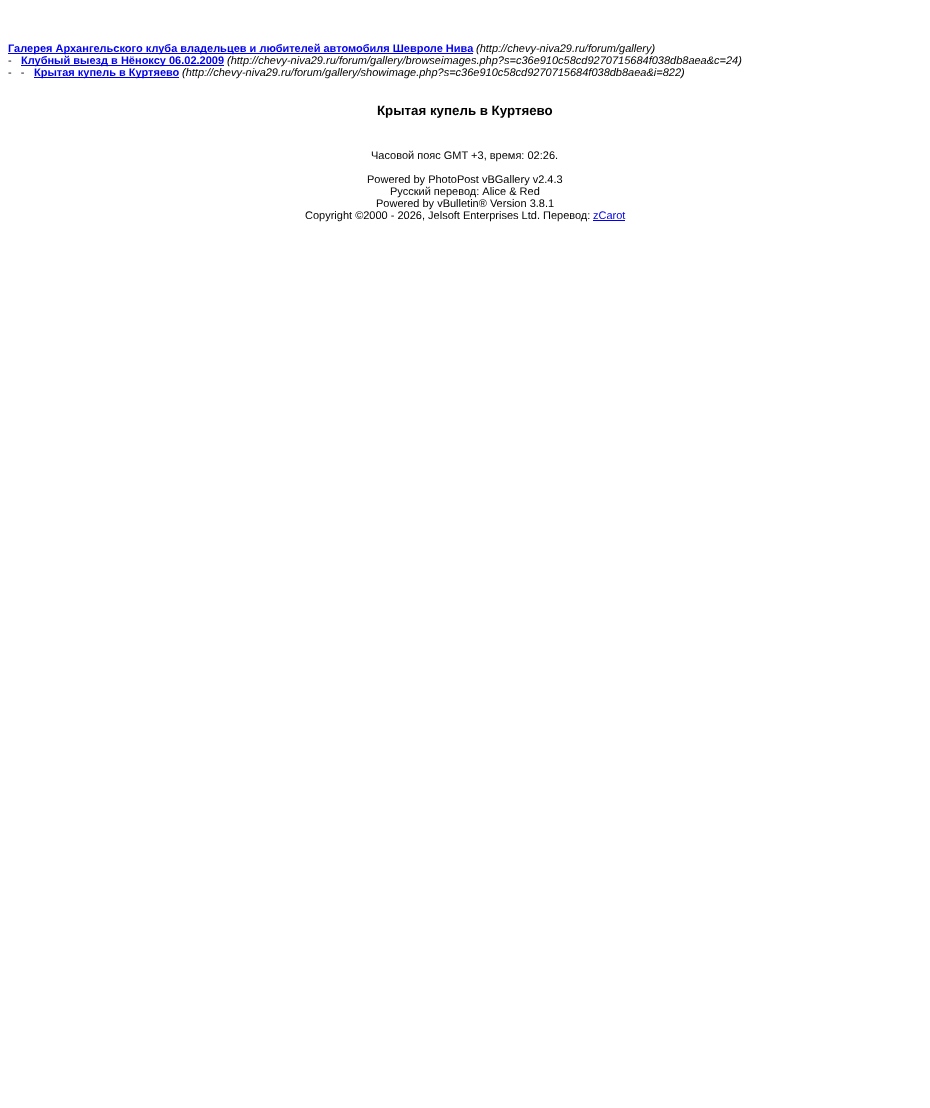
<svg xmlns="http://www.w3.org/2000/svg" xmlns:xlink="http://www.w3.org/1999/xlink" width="930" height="1108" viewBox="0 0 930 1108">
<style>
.cls-1{font:bold 11px Liberation Sans;fill:#0000ee}
.cls-2{font:italic 11px Liberation Sans;fill:#000000}
.cls-3{font:11px Liberation Sans;fill:#000000}
.cls-4{font:bold 13.3px Liberation Sans;fill:#000000}
.cls-5{font:11px Liberation Sans;fill:#0000ee}
</style>
<rect width="100%" height="100%" fill="#ffffff"/>
<rect fill="#0000ee" x="8" y="53" width="465" height="1"/>
<rect fill="#0000ee" x="21" y="65" width="203" height="1"/>
<rect fill="#0000ee" x="34" y="77" width="145" height="1"/>
<rect fill="#0000ee" x="593" y="220" width="32" height="1"/>
<text class="cls-1" x="8" y="52">Галерея Архангельского клуба владельцев и любителей автомобиля Шевроле Нива</text>
<text class="cls-2" x="476" y="52">(http://chevy-niva29.ru/forum/gallery)</text>
<text class="cls-3" x="8" y="64">-</text>
<text class="cls-1" x="21" y="64">Клубный выезд в Нёноксу 06.02.2009</text>
<text class="cls-2" x="227" y="64">(http://chevy-niva29.ru/forum/gallery/browseimages.php?s=c36e910c58cd9270715684f038db8aea&amp;c=24)</text>
<text class="cls-3" xml:space="preserve" x="8" y="76">-   -</text>
<text class="cls-1" x="34" y="76">Крытая купель в Куртяево</text>
<text class="cls-2" x="182" y="76">(http://chevy-niva29.ru/forum/gallery/showimage.php?s=c36e910c58cd9270715684f038db8aea&amp;i=822)</text>
<text class="cls-4" x="377" y="115">Крытая купель в Куртяево</text>
<text class="cls-3" x="371" y="159">Часовой пояс GMT +3, время: 02:26.</text>
<text class="cls-3" x="367" y="183">Powered by PhotoPost vBGallery v2.4.3</text>
<text class="cls-3" x="390" y="195">Русский перевод: Alice &amp; Red</text>
<text class="cls-3" x="376" y="207">Powered by vBulletin® Version 3.8.1</text>
<text class="cls-3" x="305" y="219">Copyright ©2000 - 2026, Jelsoft Enterprises Ltd. Перевод:</text>
<text class="cls-5" x="593" y="219">zCarot</text>
</svg>
